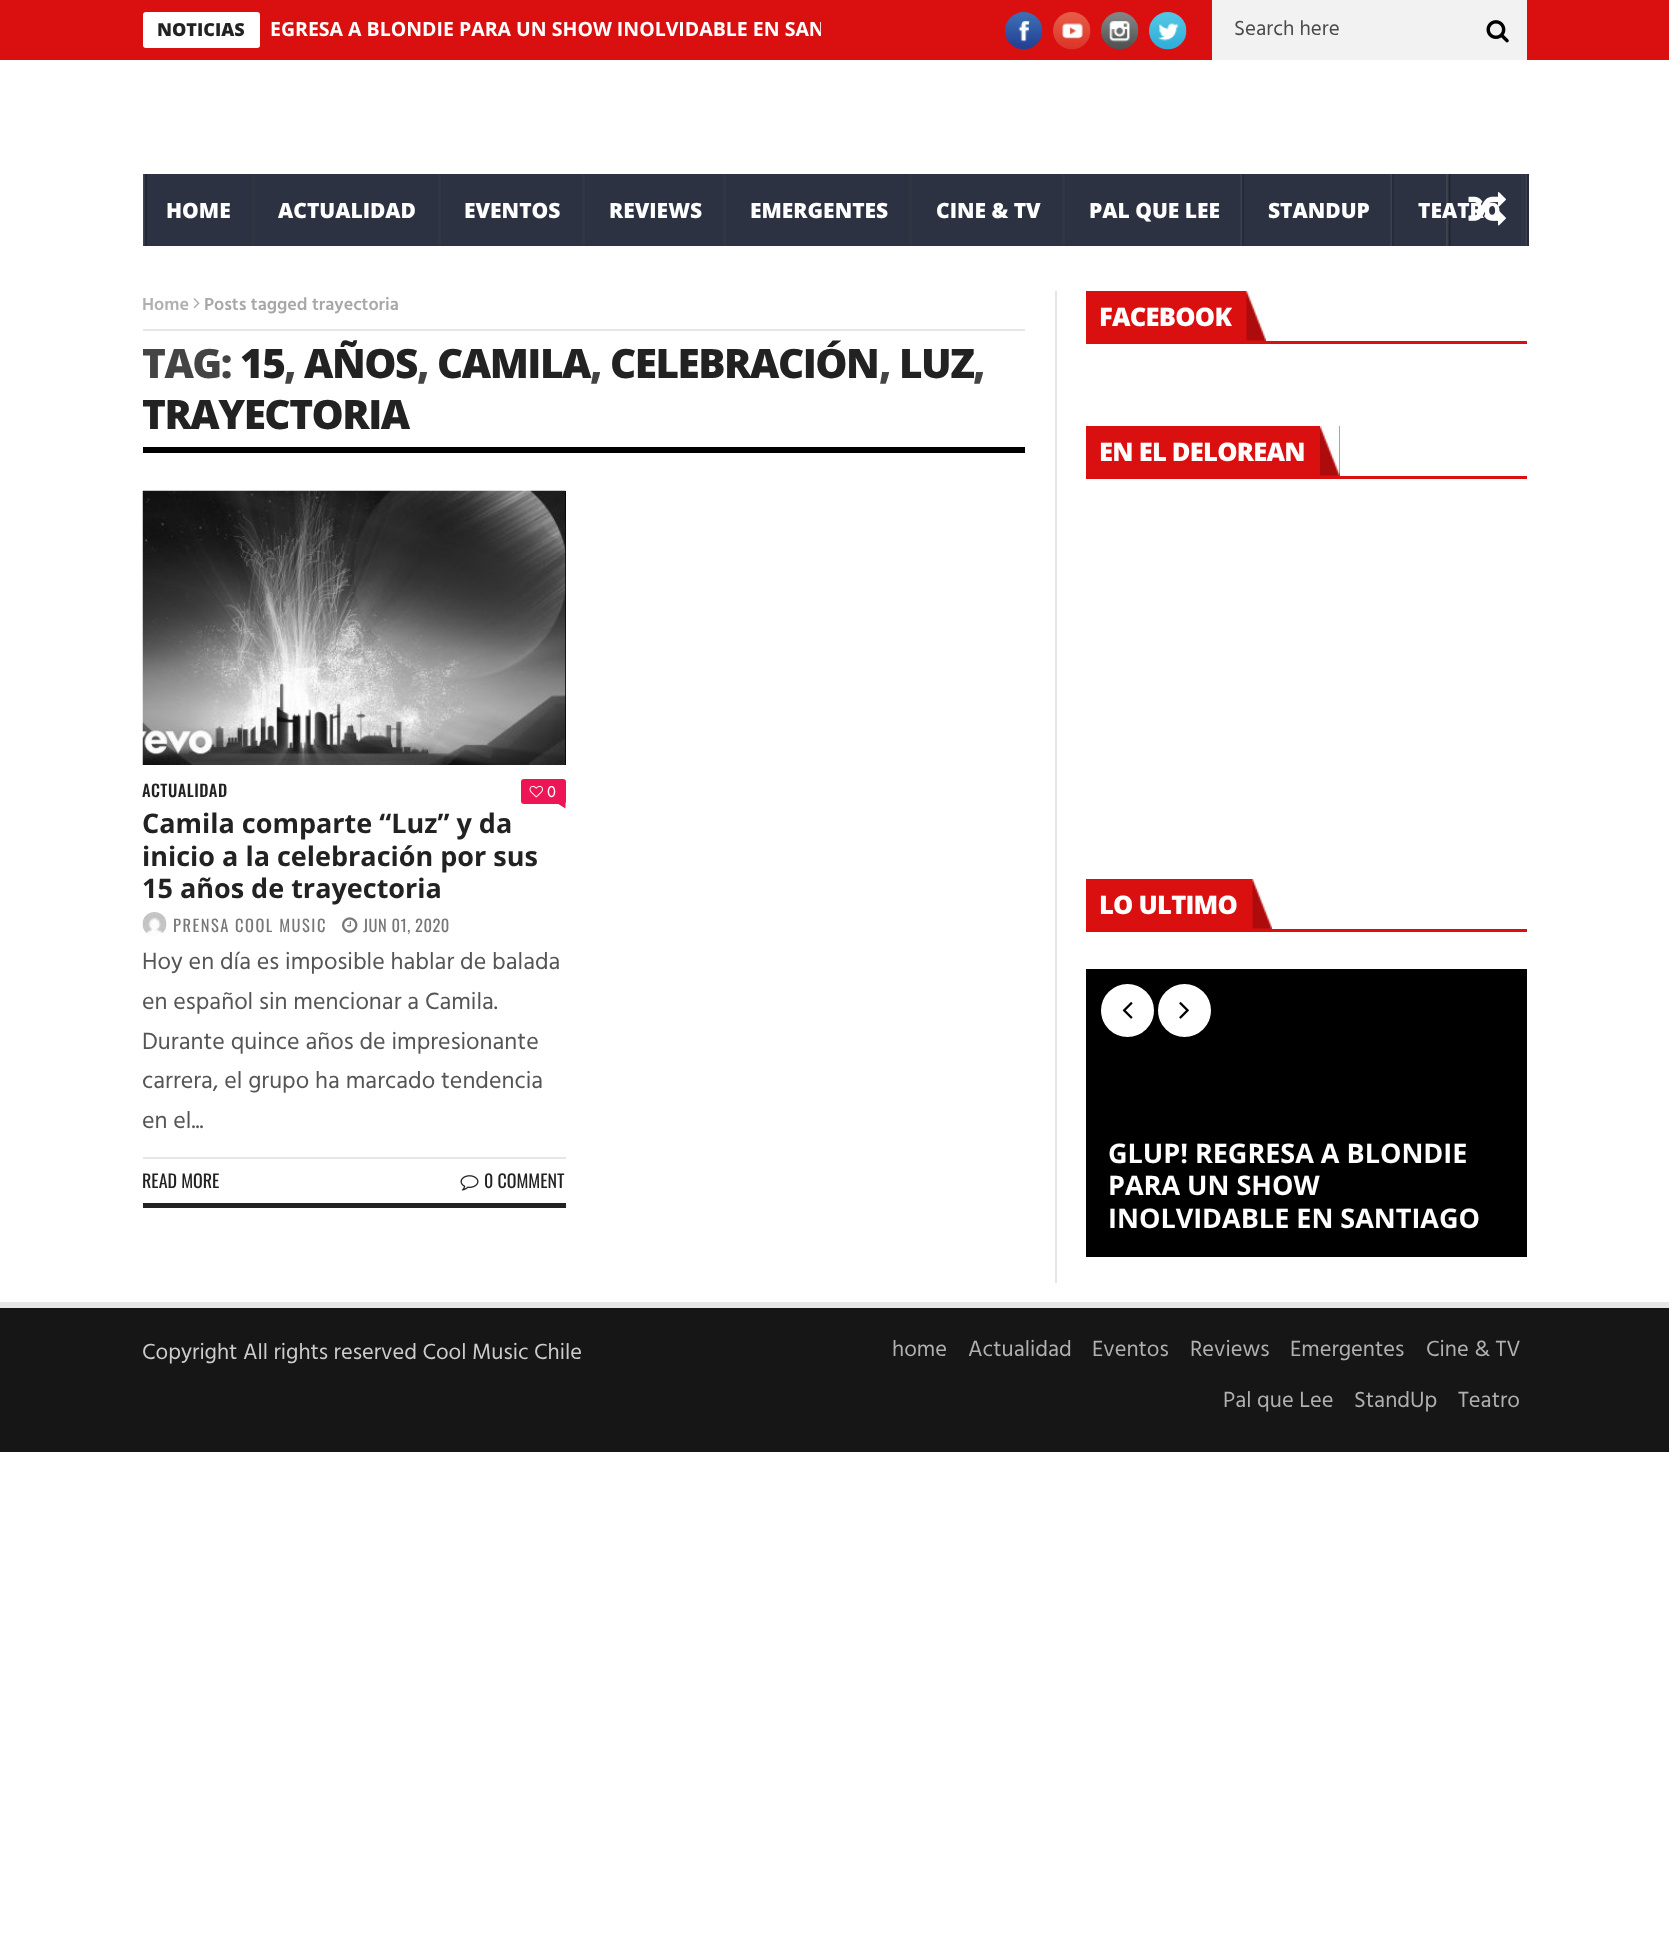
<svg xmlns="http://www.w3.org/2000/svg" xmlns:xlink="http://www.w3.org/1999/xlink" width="1669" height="1957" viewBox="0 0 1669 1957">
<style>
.cls-1{font:800 18px Open Sans;fill:#222222}
.cls-2{font:bold 19.5px Open Sans;fill:#ffffff}
.cls-3{font:21px Hind;fill:#4a4a4a}
.cls-4{font:800 21px Open Sans;fill:#ffffff}
.cls-5{font:600 18px Hind;fill:#b0b0b0}
.cls-6{font:600 18px Hind;fill:#a8a8a8}
.cls-7{font:800 40.5px Open Sans;letter-spacing:-1.5px;fill:#444444}
.cls-8{font:800 40.5px Open Sans;letter-spacing:-1.5px;fill:#222222}
.cls-9{font:500 16.5px Oswald;letter-spacing:0.5px;fill:#222222}
.cls-10{font:16.5px Hind;fill:#ffffff}
.cls-11{font:bold 27px Open Sans;fill:#222222}
.cls-12{font:16.5px Oswald;letter-spacing:1.5px;fill:#777777}
.cls-13{font:16.5px Oswald;letter-spacing:0.5px;fill:#777777}
.cls-14{font:24px Hind;fill:#555555}
.cls-15{font:18px Oswald;fill:#222222}
.cls-16{font:800 25.5px Open Sans;letter-spacing:-0.75px;fill:#ffffff}
.cls-17{font:bold 27px Open Sans;fill:#ffffff}
.cls-18{font:22.5px Hind;fill:#cccccc}
.cls-19{font:22.5px Hind;fill:#b0b0b0}
</style>
<defs>
<clipPath id="clip1"><rect x="143" y="0" width="678" height="60"/></clipPath>
</defs>
<rect width="100%" height="100%" fill="#ffffff"/>
<rect fill="#da1010" x="0" y="0" width="1669" height="60"/>
<rect fill="#ffffff" x="143" y="12" width="117" height="36" rx="3"/>
<image xlink:href="image0.png" x="1005" y="12" width="38" height="38"/>
<image xlink:href="image1.png" x="1053" y="12" width="38" height="38"/>
<image xlink:href="image2.png" x="1101" y="12" width="38" height="38"/>
<image xlink:href="image3.png" x="1149" y="12" width="38" height="38"/>
<rect fill="#f2f2f2" x="1212" y="0" width="315" height="60"/>
<image xlink:href="image4.png" x="1486" y="20" width="23" height="23"/>
<rect fill="#2c3242" x="143" y="174" width="1386" height="72"/>
<image xlink:href="image5.png" x="1446" y="174" width="5" height="72"/>
<image xlink:href="image6.png" x="1525" y="174" width="4" height="72"/>
<image xlink:href="image7.png" x="1468" y="192" width="38" height="34"/>
<image xlink:href="image8.png" x="143" y="174" width="4" height="72"/>
<rect fill="#303542" x="252" y="174" width="3" height="72"/>
<rect fill="#313644" x="438" y="174" width="3" height="72"/>
<rect fill="#313644" x="582" y="174" width="3" height="72"/>
<rect fill="#313644" x="723" y="174" width="3" height="72"/>
<rect fill="#303542" x="909" y="174" width="3" height="72"/>
<rect fill="#313644" x="1062" y="174" width="3" height="72"/>
<image xlink:href="image6.png" x="1240" y="174" width="4" height="72"/>
<image xlink:href="image6.png" x="1390" y="174" width="4" height="72"/>
<rect fill="#313644" x="1521" y="174" width="3" height="72"/>
<rect fill="#e6e6e6" x="1055" y="291" width="2" height="992"/>
<rect fill="#e6e6e6" x="143" y="329" width="882" height="2"/>
<image xlink:href="image9.png" x="193" y="298" width="7" height="11"/>
<rect fill="#000000" x="143" y="447" width="882" height="6"/>
<rect fill="#000000" x="565" y="491" width="1" height="274"/>
<image xlink:href="image10.png" x="142" y="490" width="424" height="275"/>
<rect fill="#ed1556" x="521" y="779" width="45" height="25" rx="3"/>
<image xlink:href="image11.png" x="529" y="785" width="14" height="13"/>
<path fill="#ed1556" d="M553.5 801H565.5V808.5Z"/>
<image xlink:href="image12.png" x="142" y="912" width="25" height="24"/>
<image xlink:href="image13.png" x="342" y="917" width="16" height="16"/>
<rect fill="#e6e6e6" x="143" y="1157" width="423" height="2"/>
<rect fill="#222222" x="143" y="1203" width="423" height="5"/>
<image xlink:href="image14.png" x="460" y="1175" width="19" height="16"/>
<rect fill="#da1010" x="1086" y="341" width="441" height="3"/>
<rect fill="#da1010" x="1086" y="291" width="180" height="50"/>
<image xlink:href="image15.png" x="1246" y="291" width="20" height="50"/>
<rect fill="#da1010" x="1086" y="476" width="441" height="3"/>
<rect fill="#da1010" x="1086" y="426" width="254" height="50"/>
<image xlink:href="image16.png" x="1320" y="426" width="20" height="50"/>
<rect fill="#da1010" x="1086" y="929" width="441" height="3"/>
<rect fill="#da1010" x="1086" y="879" width="186" height="50"/>
<image xlink:href="image15.png" x="1252" y="879" width="20" height="50"/>
<rect fill="#000000" x="1086" y="969" width="441" height="288"/>
<circle fill="#ffffff" cx="1127.5" cy="1010.5" r="26.5"/>
<image xlink:href="image17.png" x="1122" y="1002" width="11" height="17"/>
<circle fill="#ffffff" cx="1184.5" cy="1010.5" r="26.5"/>
<image xlink:href="image18.png" x="1179" y="1002" width="10" height="17"/>
<rect fill="#e6e6e6" x="0" y="1302" width="1669" height="6"/>
<rect fill="#161616" x="0" y="1308" width="1669" height="144"/>
<text class="cls-1" x="157" y="36">NOTICIAS</text>
<g clip-path="url(#clip1)">
<text class="cls-2" x="270" y="36">EGRESA A BLONDIE PARA UN SHOW INOLVIDABLE EN SAN</text>
</g>
<text class="cls-3" x="1234" y="35">Search here</text>
<text class="cls-4" x="166" y="218">HOME</text>
<text class="cls-4" x="278" y="218">ACTUALIDAD</text>
<text class="cls-4" x="464" y="218">EVENTOS</text>
<text class="cls-4" x="609" y="218">REVIEWS</text>
<text class="cls-4" x="750" y="218">EMERGENTES</text>
<text class="cls-4" x="936" y="218">CINE &amp; TV</text>
<text class="cls-4" x="1089" y="218">PAL QUE LEE</text>
<text class="cls-4" x="1268" y="218">STANDUP</text>
<text class="cls-4" x="1418" y="218">TEATRO</text>
<text class="cls-5" x="142" y="310">Home</text>
<text class="cls-6" x="204" y="310">Posts tagged trayectoria</text>
<text class="cls-7" x="142" y="378">TAG:</text>
<text class="cls-8" x="240" y="378">15</text>
<text class="cls-7" x="284" y="378">,</text>
<text class="cls-8" x="304" y="378">AÑOS</text>
<text class="cls-7" x="417" y="378">,</text>
<text class="cls-8" x="437" y="378">CAMILA</text>
<text class="cls-7" x="590" y="378">,</text>
<text class="cls-8" x="610" y="378">CELEBRACIÓN</text>
<text class="cls-7" x="879" y="378">,</text>
<text class="cls-8" x="899" y="378">LUZ</text>
<text class="cls-7" x="973" y="378">,</text>
<text class="cls-8" x="142" y="429">TRAYECTORIA</text>
<text class="cls-9" x="142" y="797">ACTUALIDAD</text>
<text class="cls-10" x="547" y="797">0</text>
<text class="cls-11"><tspan x="142" y="833">Camila comparte “Luz” y da</tspan><tspan x="142" y="866">inicio a la celebración por sus</tspan><tspan x="142" y="898">15 años de trayectoria</tspan></text>
<text class="cls-12" x="173" y="932">PRENSA COOL MUSIC</text>
<text class="cls-13" x="363" y="932">JUN 01, 2020</text>
<text class="cls-14"><tspan x="142" y="969">Hoy en día es imposible hablar de balada</tspan><tspan x="142" y="1009">en español sin mencionar a Camila.</tspan><tspan x="142" y="1049">Durante quince años de impresionante</tspan><tspan x="142" y="1088">carrera, el grupo ha marcado tendencia</tspan><tspan x="142" y="1128">en el...</tspan></text>
<text class="cls-15" x="142" y="1188">READ MORE</text>
<text class="cls-15" x="484" y="1188">0 COMMENT</text>
<text class="cls-16" x="1099" y="326">FACEBOOK</text>
<text class="cls-16" x="1099" y="461">EN EL DELOREAN</text>
<text class="cls-16" x="1099" y="914">LO ULTIMO</text>
<text class="cls-17"><tspan x="1108" y="1163">GLUP! REGRESA A BLONDIE</tspan><tspan x="1108" y="1195">PARA UN SHOW</tspan><tspan x="1108" y="1228">INOLVIDABLE EN SANTIAGO</tspan></text>
<text class="cls-18" x="142" y="1359">Copyright All rights reserved Cool Music Chile</text>
<text class="cls-19" x="892" y="1356">home</text>
<text class="cls-19" x="968" y="1356">Actualidad</text>
<text class="cls-19" x="1092" y="1356">Eventos</text>
<text class="cls-19" x="1190" y="1356">Reviews</text>
<text class="cls-19" x="1290" y="1356">Emergentes</text>
<text class="cls-19" x="1426" y="1356">Cine &amp; TV</text>
<text class="cls-19" x="1223" y="1407">Pal que Lee</text>
<text class="cls-19" x="1354" y="1407">StandUp</text>
<text class="cls-19" x="1458" y="1407">Teatro</text>
</svg>
